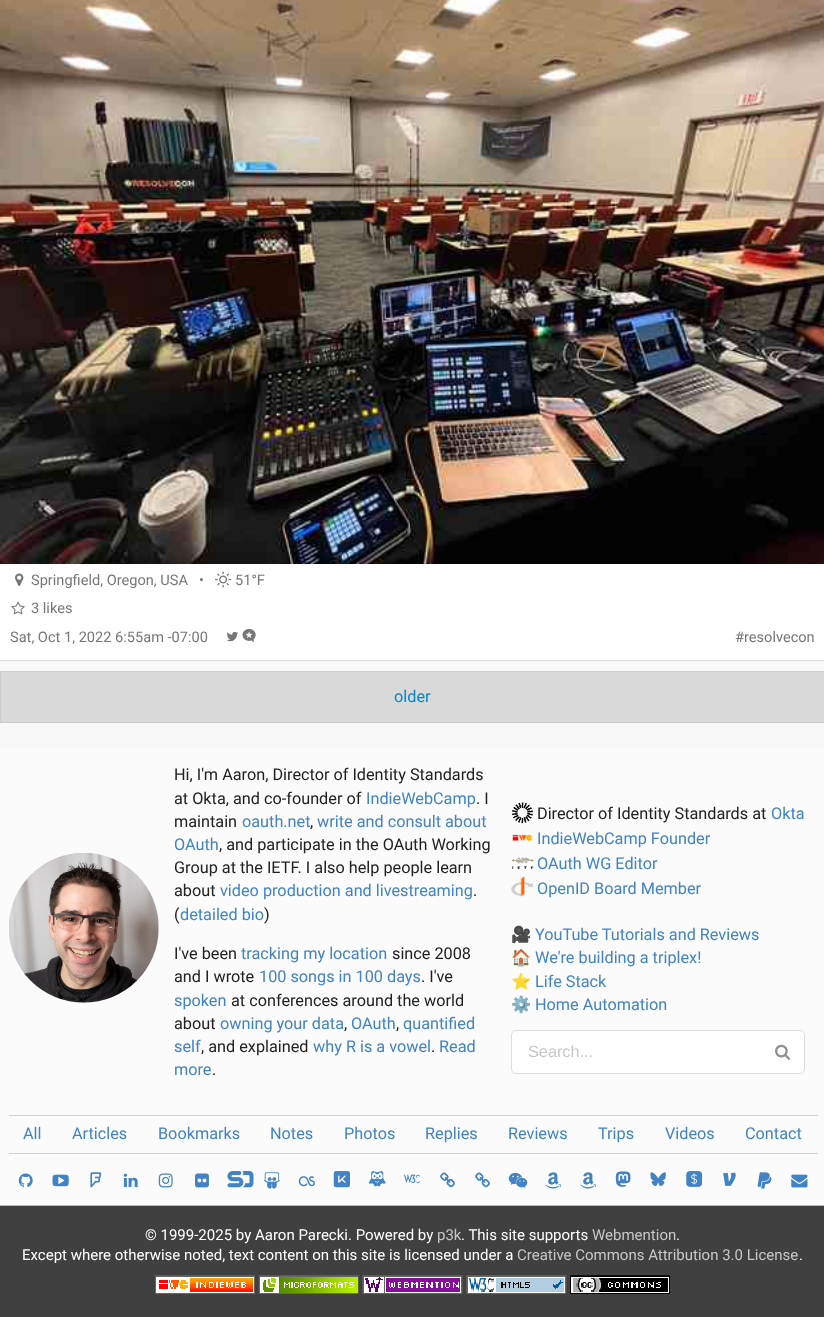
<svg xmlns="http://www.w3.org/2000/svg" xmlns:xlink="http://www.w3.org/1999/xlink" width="824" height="1317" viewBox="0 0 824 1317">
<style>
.cls-1{font:14.6px Roboto;fill:#777777}
.cls-2{font:16.25px Roboto;fill:#0088cc}
.cls-3{font:16.25px Roboto;fill:#212121}
.cls-4{font:16.25px Roboto;fill:#4183c4}
.cls-5{font:16.25px Noto Color Emoji;fill:#212121}
.cls-6{font:16.25px Noto Color Emoji;fill:#4183c4}
.cls-7{font:16.25px Liberation Sans;fill:#c7c7c7}
.cls-8{font:15px Roboto;fill:#ffffff}
.cls-9{font:15px Roboto;fill:#c7c7c7}
</style>
<rect width="100%" height="100%" fill="#f8f8f8"/>
<rect fill="#ffffff" x="0" y="564" width="824" height="96"/>
<rect fill="#dddddd" x="0" y="660" width="824" height="1"/>
<image xlink:href="image0.png" x="0" y="0" width="824" height="564"/>
<image xlink:href="image1.png" x="15" y="573" width="9" height="13"/>
<image xlink:href="image2.png" x="215" y="571" width="17" height="17"/>
<image xlink:href="image3.png" x="11" y="601" width="14" height="14"/>
<image xlink:href="image4.png" x="226" y="631" width="12" height="11"/>
<image xlink:href="image5.png" x="242" y="628" width="14" height="14"/>
<rect fill="#d9d9d9" stroke="#cccccc" x="0.5" y="671.5" width="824" height="51"/>
<rect fill="#fbfbfb" x="0" y="748" width="824" height="457"/>
<image xlink:href="image6.png" x="9" y="853" width="150" height="150"/>
<image xlink:href="image7.png" x="512" y="802" width="21" height="22"/>
<image xlink:href="image8.png" x="512" y="834" width="21" height="7"/>
<image xlink:href="image9.png" x="512" y="857" width="22" height="12"/>
<image xlink:href="image10.png" x="511" y="876" width="22" height="21"/>
<rect fill="#ffffff" stroke="#dedede" x="511.5" y="1030.5" width="293" height="43" rx="4.5"/>
<image xlink:href="image11.png" x="775" y="1044" width="15" height="16"/>
<rect fill="#d0d0d0" x="9" y="1115" width="809" height="1"/>
<rect fill="#d0d0d0" x="9" y="1153" width="809" height="1"/>
<image xlink:href="image12.png" x="18" y="1173" width="15" height="14"/>
<image xlink:href="image13.png" x="52" y="1174" width="17" height="13"/>
<image xlink:href="image14.png" x="90" y="1172" width="12" height="16"/>
<image xlink:href="image15.png" x="123" y="1173" width="15" height="14"/>
<image xlink:href="image16.png" x="158" y="1173" width="15" height="15"/>
<image xlink:href="image17.png" x="195" y="1173" width="14" height="15"/>
<image xlink:href="image18.png" x="227" y="1171" width="27" height="17"/>
<image xlink:href="image19.png" x="263" y="1172" width="17" height="17"/>
<image xlink:href="image20.png" x="298" y="1176" width="17" height="11"/>
<image xlink:href="image21.png" x="333" y="1171" width="17" height="17"/>
<image xlink:href="image22.png" x="368" y="1171" width="18" height="16"/>
<image xlink:href="image23.png" x="404" y="1174" width="16" height="10"/>
<image xlink:href="image24.png" x="440" y="1172" width="15" height="16"/>
<image xlink:href="image24.png" x="475" y="1172" width="15" height="16"/>
<image xlink:href="image25.png" x="508" y="1172" width="20" height="16"/>
<image xlink:href="image26.png" x="545" y="1172" width="16" height="17"/>
<image xlink:href="image26.png" x="580" y="1172" width="16" height="17"/>
<image xlink:href="image27.png" x="615" y="1171" width="16" height="16"/>
<image xlink:href="image28.png" x="650" y="1172" width="16" height="14"/>
<image xlink:href="image29.png" x="686" y="1171" width="17" height="16"/>
<image xlink:href="image30.png" x="723" y="1172" width="13" height="14"/>
<image xlink:href="image31.png" x="757" y="1172" width="15" height="17"/>
<image xlink:href="image32.png" x="791" y="1174" width="17" height="14"/>
<rect fill="#404040" x="0" y="1206" width="824" height="111"/>
<rect fill="#bbbbbb" x="0" y="1205" width="824" height="1"/>
<image xlink:href="image33.png" x="155" y="1275" width="100" height="19"/>
<image xlink:href="image34.png" x="258" y="1275" width="101" height="19"/>
<image xlink:href="image35.png" x="362" y="1275" width="101" height="19"/>
<image xlink:href="image36.png" x="466" y="1275" width="101" height="19"/>
<image xlink:href="image37.png" x="570" y="1275" width="100" height="19"/>
<text class="cls-1" x="31" y="585">Springfield, Oregon, USA</text>
<text class="cls-1" x="199" y="585">•</text>
<text class="cls-1" x="235" y="585">51°F</text>
<text class="cls-1" x="31" y="613">3 likes</text>
<text class="cls-1" x="10" y="642">Sat, Oct 1, 2022 6:55am -07:00</text>
<text class="cls-1" x="735" y="642">#resolvecon</text>
<text class="cls-2" x="394" y="702">older</text>
<text class="cls-3"><tspan x="174" y="780">Hi, I'm Aaron, Director of Identity Standards</tspan><tspan x="174" y="804">at Okta, and co-founder of</tspan></text>
<text class="cls-4" x="366" y="804">IndieWebCamp</text>
<text class="cls-3" x="476" y="804">. I</text>
<text class="cls-3" x="174" y="827">maintain</text>
<text class="cls-4" x="242" y="827">oauth.net</text>
<text class="cls-3" x="310" y="827">,</text>
<text class="cls-4" x="317" y="827">write and consult about</text>
<text class="cls-4" x="174" y="850">OAuth</text>
<text class="cls-3" x="219" y="850">, and participate in the OAuth Working</text>
<text class="cls-3"><tspan x="174" y="873">Group at the IETF. I also help people learn</tspan><tspan x="174" y="896">about</tspan></text>
<text class="cls-4" x="220" y="896">video production and livestreaming</text>
<text class="cls-3" x="473" y="896">.</text>
<text class="cls-3" x="174" y="920">(</text>
<text class="cls-4" x="180" y="920">detailed bio</text>
<text class="cls-3" x="264" y="920">)</text>
<text class="cls-3" x="174" y="959">I've been</text>
<text class="cls-4" x="241" y="959">tracking my location</text>
<text class="cls-3" x="392" y="959">since 2008</text>
<text class="cls-3" x="174" y="982">and I wrote</text>
<text class="cls-4" x="259" y="982">100 songs in 100 days</text>
<text class="cls-3" x="421" y="982">. I've</text>
<text class="cls-4" x="174" y="1006">spoken</text>
<text class="cls-3" x="231" y="1006">at conferences around the world</text>
<text class="cls-3" x="174" y="1029">about</text>
<text class="cls-4" x="220" y="1029">owning your data</text>
<text class="cls-3" x="344" y="1029">,</text>
<text class="cls-4" x="351" y="1029">OAuth</text>
<text class="cls-3" x="396" y="1029">,</text>
<text class="cls-4" x="403" y="1029">quantified</text>
<text class="cls-4" x="174" y="1052">self</text>
<text class="cls-3" x="201" y="1052">, and explained</text>
<text class="cls-4" x="313" y="1052">why R is a vowel</text>
<text class="cls-3" x="431" y="1052">.</text>
<text class="cls-4" x="439" y="1052">Read</text>
<text class="cls-4" x="174" y="1075">more</text>
<text class="cls-3" x="212" y="1075">.</text>
<text class="cls-3" x="537" y="819">Director of Identity Standards at</text>
<text class="cls-4" x="771" y="819">Okta</text>
<text class="cls-4"><tspan x="537" y="844">IndieWebCamp Founder</tspan><tspan x="537" y="869">OAuth WG Editor</tspan><tspan x="537" y="894">OpenID Board Member</tspan></text>
<text class="cls-5" x="511" y="940">🎥</text>
<text class="cls-4" x="535" y="940">YouTube Tutorials and Reviews</text>
<text class="cls-5" x="511" y="963">🏠</text>
<text class="cls-4" x="535" y="963">We're building a triplex!</text>
<text class="cls-6" x="511" y="987">⭐️</text>
<text class="cls-4" x="535" y="987">Life Stack</text>
<text class="cls-5" x="511" y="1010">⚙️</text>
<text class="cls-4" x="535" y="1010">Home Automation</text>
<text class="cls-7" x="528" y="1057">Search...</text>
<text class="cls-4" x="23" y="1139">All</text>
<text class="cls-4" x="72" y="1139">Articles</text>
<text class="cls-4" x="158" y="1139">Bookmarks</text>
<text class="cls-4" x="270" y="1139">Notes</text>
<text class="cls-4" x="344" y="1139">Photos</text>
<text class="cls-4" x="425" y="1139">Replies</text>
<text class="cls-4" x="508" y="1139">Reviews</text>
<text class="cls-4" x="598" y="1139">Trips</text>
<text class="cls-4" x="665" y="1139">Videos</text>
<text class="cls-4" x="745" y="1139">Contact</text>
<text class="cls-8" x="145" y="1240">© 1999-2025 by Aaron Parecki. Powered by</text>
<text class="cls-9" x="437" y="1240">p3k</text>
<text class="cls-8" x="461" y="1240">. This site supports</text>
<text class="cls-9" x="592" y="1240">Webmention</text>
<text class="cls-8" x="676" y="1240">.</text>
<text class="cls-8" x="22" y="1260">Except where otherwise noted, text content on this site is licensed under a</text>
<text class="cls-9" x="517" y="1260">Creative Commons Attribution 3.0 License</text>
<text class="cls-8" x="799" y="1260">.</text>
</svg>
